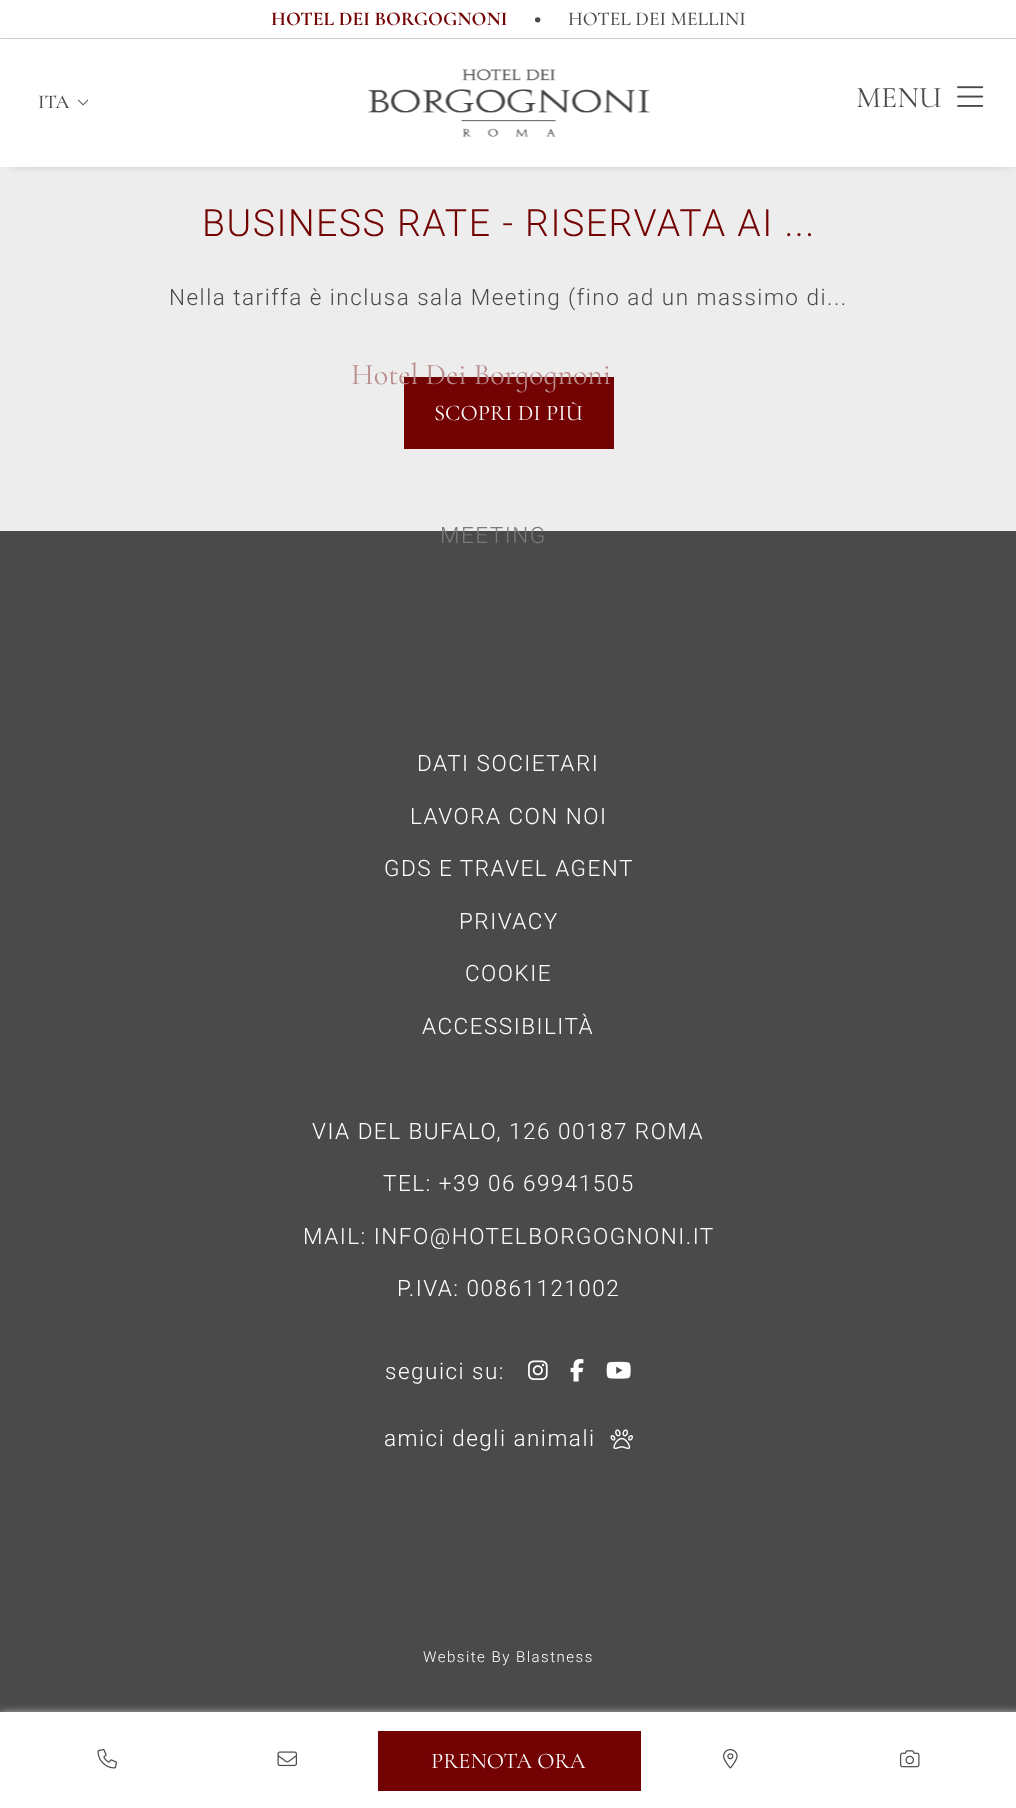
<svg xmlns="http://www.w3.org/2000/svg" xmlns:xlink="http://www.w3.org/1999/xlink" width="1016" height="1808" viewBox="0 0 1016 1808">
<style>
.cls-1{font:bold 19.5px Cormorant Infant;fill:#730202}
.cls-2{font:bold 45px Cormorant Infant;fill:#4a4a4a}
.cls-3{font:500 19.5px Cormorant Infant;fill:#4a4a4a}
.cls-4{font:30px Cormorant Infant;fill:#4a4a4a}
.cls-5{font:300 22.5px Roboto;letter-spacing:1.5px;fill:#7a7a7a}
.cls-6{font:300 37.5px Roboto;letter-spacing:1.5px;fill:#730202}
.cls-7{font:300 22.5px Roboto;letter-spacing:1.5px;fill:#4a4a4a}
.cls-8{font:22.5px Cormorant Infant;fill:#ffffff}
.cls-9{font:30px Cormorant Infant;fill:#bb8c8c}
.cls-10{font:300 22.5px Roboto;letter-spacing:1.5px;fill:#ffffff}
.cls-11{font:300 15px Roboto;letter-spacing:1.5px;fill:#ffffff}
</style>
<rect width="100%" height="100%" fill="#ededed"/>
<rect fill="#ffffff" x="0" y="0" width="1016" height="38"/>
<rect fill="#cccccc" x="0" y="38" width="1016" height="1"/>
<rect fill="#666666" filter="blur(6px)" x="12" y="51" width="999" height="110"/>
<rect fill="#ffffff" x="0" y="39" width="1016" height="128"/>
<image xlink:href="image0.png" x="78" y="99" width="11" height="7"/>
<image xlink:href="image1.png" x="367" y="69" width="283" height="68"/>
<image xlink:href="image2.png" x="957" y="86" width="27" height="21"/>
<rect fill="#730202" x="404" y="377" width="210" height="72"/>
<rect fill="#4a4a4a" x="0" y="531" width="1016" height="1181"/>
<image xlink:href="image3.png" x="528" y="1360" width="20" height="20"/>
<image xlink:href="image4.png" x="570" y="1359" width="14" height="23"/>
<image xlink:href="image5.png" x="606" y="1361" width="25" height="18"/>
<image xlink:href="image6.png" x="610" y="1429" width="23" height="21"/>
<rect fill="#cccccc" filter="blur(4px)" x="0" y="1713" width="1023" height="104"/>
<rect fill="#ffffff" x="0" y="1712" width="1016" height="96"/>
<image xlink:href="image7.png" x="97" y="1749" width="20" height="20"/>
<image xlink:href="image8.png" x="277" y="1751" width="20" height="16"/>
<rect fill="#730202" x="378" y="1731" width="263" height="60"/>
<image xlink:href="image9.png" x="723" y="1749" width="15" height="20"/>
<image xlink:href="image10.png" x="900" y="1750" width="20" height="18"/>
<text class="cls-1" x="271" y="25">HOTEL DEI BORGOGNONI</text>
<text class="cls-2" x="533" y="22">.</text>
<text class="cls-3" x="568" y="25">HOTEL DEI MELLINI</text>
<text class="cls-3" x="38" y="108">ITA</text>
<text class="cls-4" x="856" y="107">MENU</text>
<text class="cls-5" x="440" y="543">MEETING</text>
<text class="cls-6" x="202" y="236">BUSINESS RATE - RISERVATA AI ...</text>
<text class="cls-7" x="169" y="305">Nella tariffa è inclusa sala Meeting (fino ad un massimo di...</text>
<text class="cls-8" x="434" y="420">SCOPRI DI PIÙ</text>
<text class="cls-9" x="351" y="384">Hotel Dei Borgognoni</text>
<text class="cls-10" x="417" y="771">DATI SOCIETARI</text>
<text class="cls-10" x="410" y="824">LAVORA CON NOI</text>
<text class="cls-10" x="384" y="876">GDS E TRAVEL AGENT</text>
<text class="cls-10" x="459" y="929">PRIVACY</text>
<text class="cls-10" x="465" y="981">COOKIE</text>
<text class="cls-10" x="422" y="1034">ACCESSIBILITÀ</text>
<text class="cls-10" x="312" y="1139">VIA DEL BUFALO, 126 00187 ROMA</text>
<text class="cls-10" x="383" y="1191">TEL: +39 06 69941505</text>
<text class="cls-10" x="303" y="1244">MAIL: INFO@HOTELBORGOGNONI.IT</text>
<text class="cls-10" x="397" y="1296">P.IVA: 00861121002</text>
<text class="cls-10" x="385" y="1379">seguici su:</text>
<text class="cls-10" x="384" y="1446">amici degli animali</text>
<text class="cls-11" x="423" y="1662">Website By Blastness</text>
<text class="cls-8" x="431" y="1768">PRENOTA ORA</text>
</svg>
